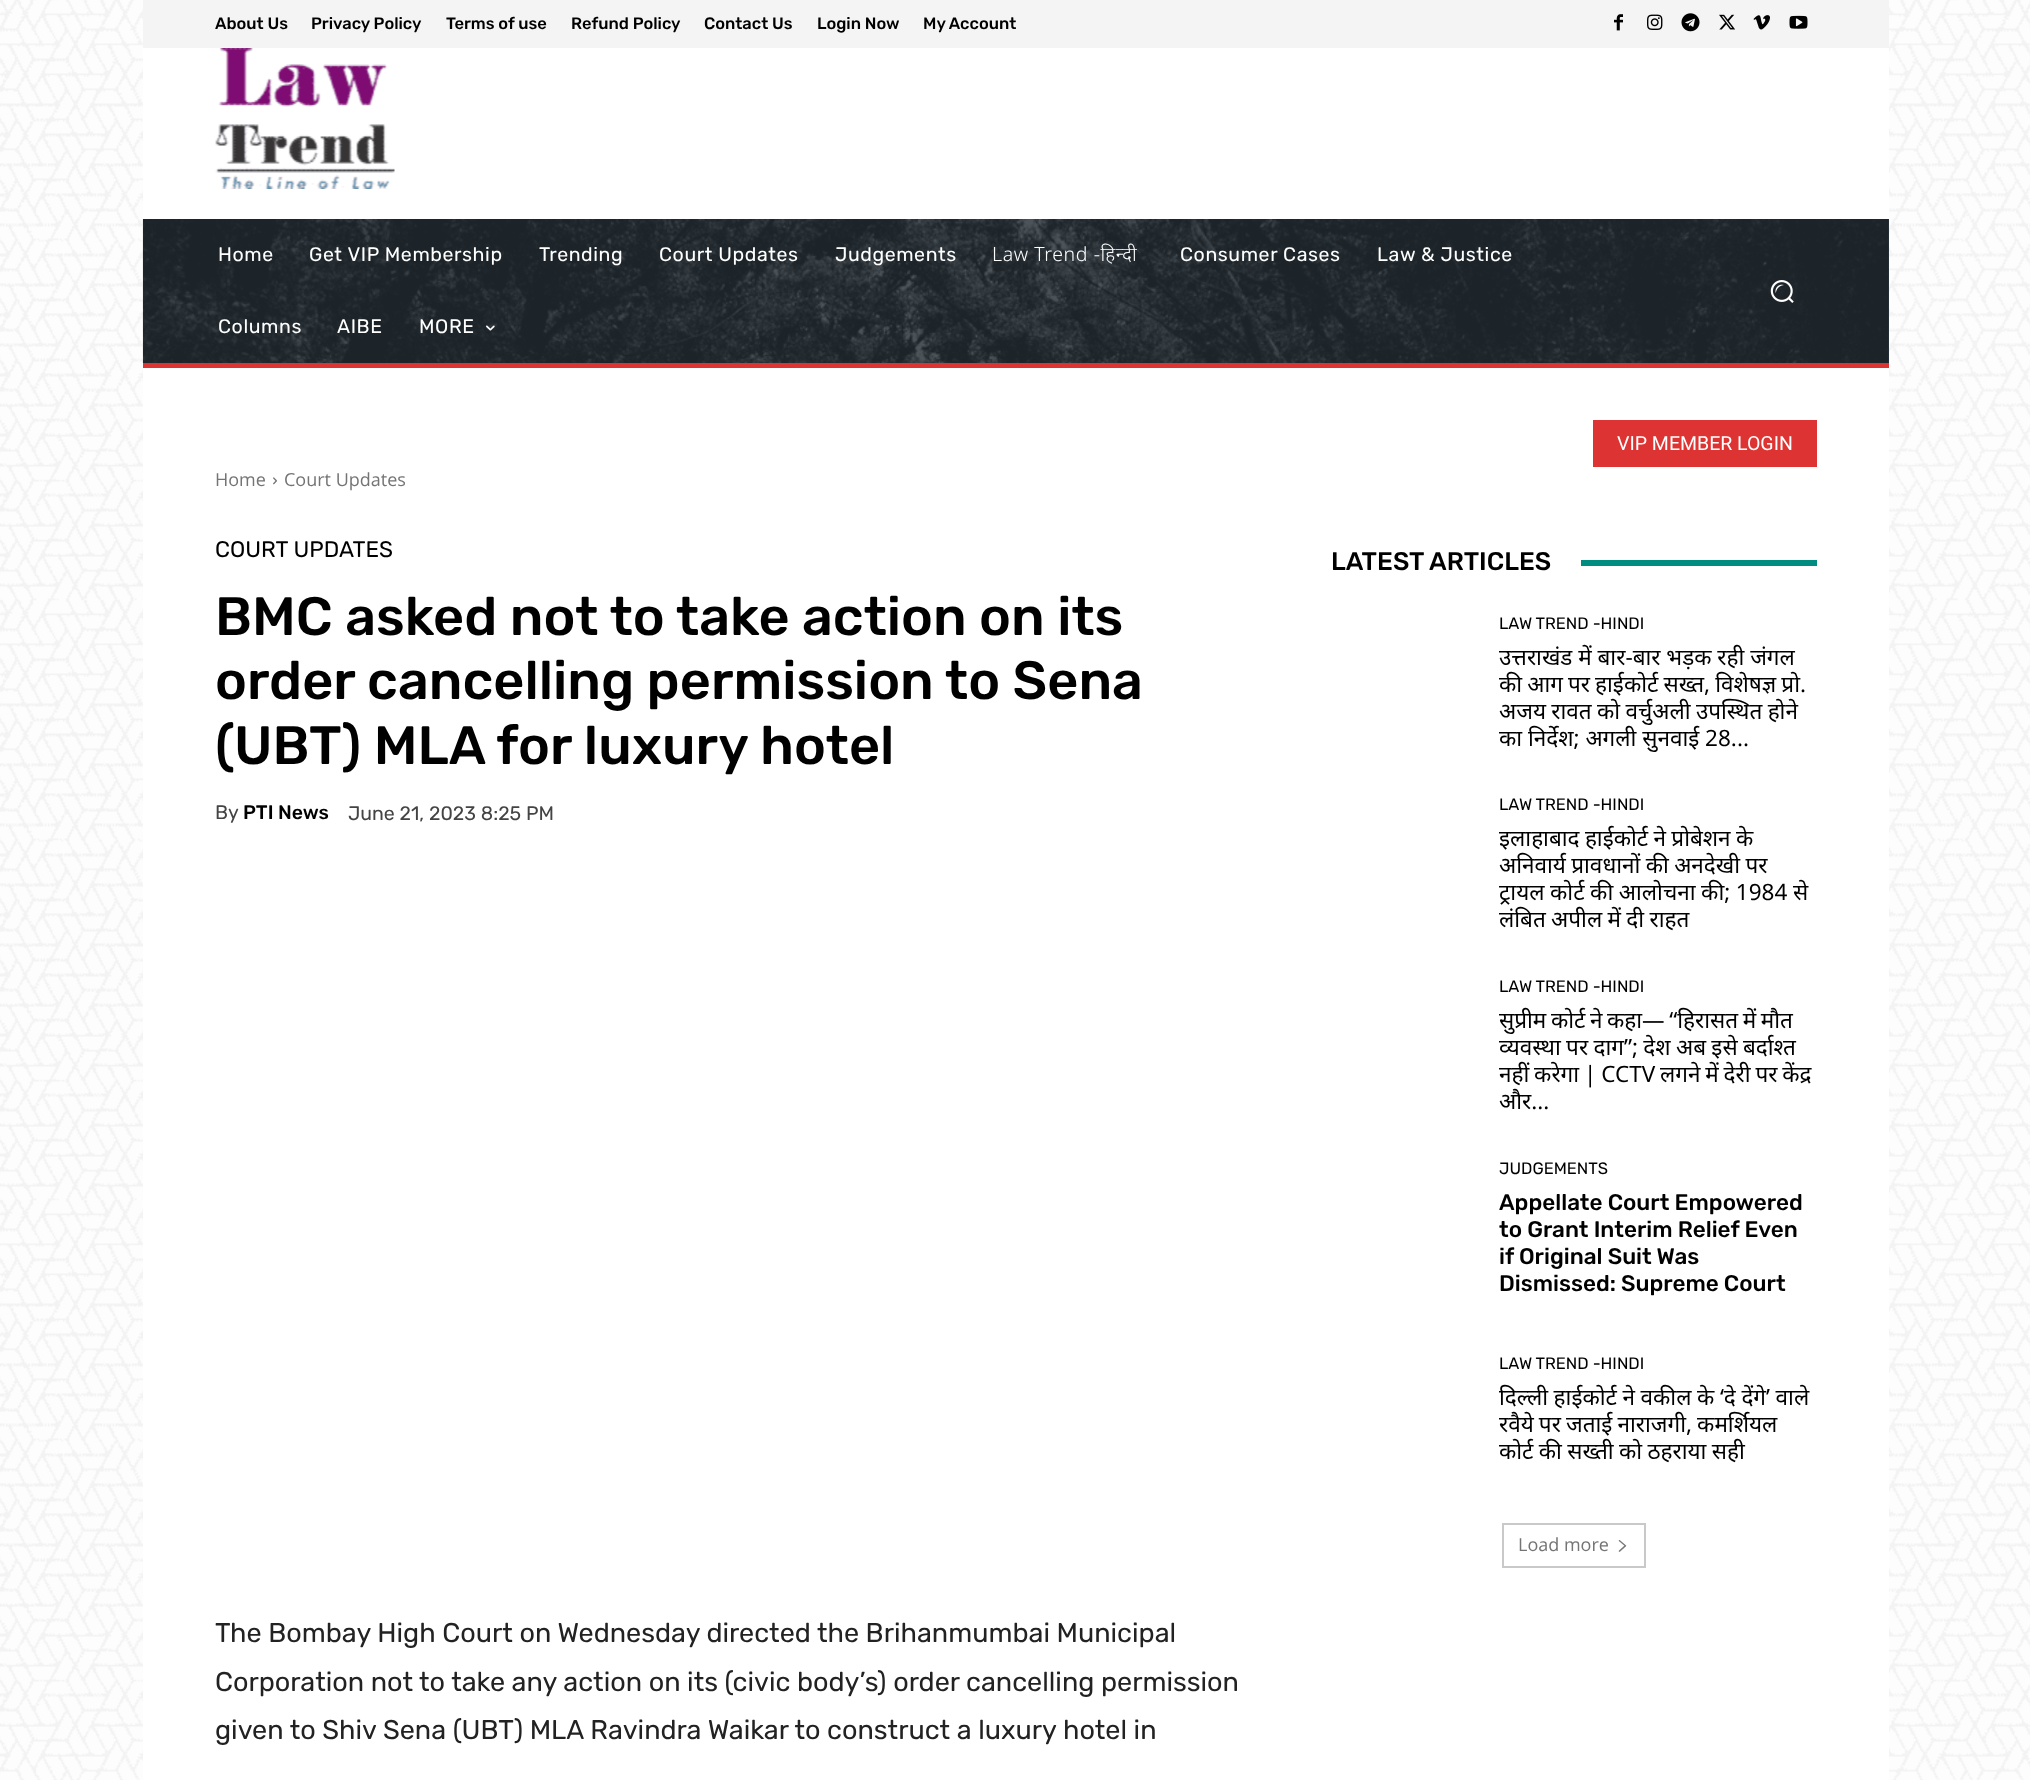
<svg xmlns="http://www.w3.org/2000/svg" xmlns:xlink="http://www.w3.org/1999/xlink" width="2030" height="1780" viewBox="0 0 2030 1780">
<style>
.cls-1{font:500 16.5px Rubik;fill:#000000}
.cls-2{font:19.5px Rubik;letter-spacing:0.6px;fill:#ffffff}
.cls-3{font:300 19.5px Noto Sans;letter-spacing:0.6px;fill:#ffffff}
.cls-4{font:19.5px Roboto;fill:#ffffff}
.cls-5{font:18px Open Sans;fill:#747474}
.cls-6{font:22.5px Rubik;fill:#000000}
.cls-7{font:500 54px Rubik;fill:#000000}
.cls-8{font:19.5px Rubik;fill:#444444}
.cls-9{font:500 19.5px Rubik;fill:#000000}
.cls-10{font:27px Rubik;fill:#222222}
.cls-11{font:500 25.5px Rubik;fill:#000000}
.cls-12{font:16.5px Rubik;fill:#000000}
.cls-13{font:22.5px Noto Sans;fill:#000000}
.cls-14{font:500 22.5px Rubik;fill:#000000}
</style>
<rect width="100%" height="100%" fill="#ffffff"/>
<image xlink:href="image0.png" x="0" y="0" width="2030" height="1780"/>
<rect fill="#f4f4f4" x="143" y="0" width="1746" height="48"/>
<image xlink:href="image1.png" x="1614" y="14" width="9" height="17"/>
<image xlink:href="image2.png" x="1647" y="14" width="16" height="16"/>
<image xlink:href="image3.png" x="1681" y="13" width="19" height="19"/>
<image xlink:href="image4.png" x="1719" y="14" width="16" height="16"/>
<image xlink:href="image5.png" x="1753" y="15" width="17" height="15"/>
<image xlink:href="image6.png" x="1789" y="15" width="19" height="14"/>
<rect fill="#ffffff" x="143" y="48" width="1746" height="1732"/>
<image xlink:href="image7.png" x="215" y="48" width="180" height="141"/>
<rect fill="#232d35" x="143" y="219" width="1746" height="144"/>
<image xlink:href="image8.png" x="142" y="219" width="1746" height="144"/>
<image xlink:href="image9.png" x="486" y="325" width="9" height="6"/>
<image xlink:href="image10.png" x="1770" y="280" width="24" height="23"/>
<rect fill="#dd3333" x="143" y="363" width="1746" height="5"/>
<rect fill="#dd3333" x="1593" y="420" width="224" height="47"/>
<image xlink:href="image11.png" x="273" y="477" width="4" height="8"/>
<rect fill="#008d7f" x="1581" y="560" width="236" height="6"/>
<rect fill="none" stroke="#c9c9c9" stroke-width="2" x="1503" y="1524" width="142" height="43"/>
<image xlink:href="image12.png" x="1618" y="1540" width="9" height="12"/>
<text class="cls-1" x="215" y="29">About Us</text>
<text class="cls-1" x="311" y="29">Privacy Policy</text>
<text class="cls-1" x="446" y="29">Terms of use</text>
<text class="cls-1" x="571" y="29">Refund Policy</text>
<text class="cls-1" x="704" y="29">Contact Us</text>
<text class="cls-1" x="817" y="29">Login Now</text>
<text class="cls-1" x="923" y="29">My Account</text>
<text class="cls-2" x="218" y="261">Home</text>
<text class="cls-2" x="309" y="261">Get VIP Membership</text>
<text class="cls-2" x="539" y="261">Trending</text>
<text class="cls-2" x="659" y="261">Court Updates</text>
<text class="cls-2" x="835" y="261">Judgements</text>
<text class="cls-3" x="992" y="261">Law Trend -हिन्दी</text>
<text class="cls-2" x="1180" y="261">Consumer Cases</text>
<text class="cls-2" x="1377" y="261">Law &amp; Justice</text>
<text class="cls-2" x="218" y="333">Columns</text>
<text class="cls-2" x="337" y="333">AIBE</text>
<text class="cls-2" x="419" y="333">MORE</text>
<text class="cls-4" x="1617" y="450">VIP MEMBER LOGIN</text>
<text class="cls-5" x="215" y="486">Home</text>
<text class="cls-5" x="284" y="486">Court Updates</text>
<text class="cls-6" x="215" y="557">COURT UPDATES</text>
<text class="cls-7"><tspan x="215" y="635">BMC asked not to take action on its</tspan><tspan x="215" y="699">order cancelling permission to Sena</tspan><tspan x="215" y="764">(UBT) MLA for luxury hotel</tspan></text>
<text class="cls-8" x="215" y="819">By</text>
<text class="cls-9" x="243" y="819">PTI News</text>
<text class="cls-8" x="348" y="820">June 21, 2023 8:25 PM</text>
<text class="cls-10"><tspan x="215" y="1642">The Bombay High Court on Wednesday directed the Brihanmumbai Municipal</tspan><tspan x="215" y="1691">Corporation not to take any action on its (civic body’s) order cancelling permission</tspan><tspan x="215" y="1739">given to Shiv Sena (UBT) MLA Ravindra Waikar to construct a luxury hotel in</tspan></text>
<text class="cls-11" x="1331" y="570">LATEST ARTICLES</text>
<text class="cls-12" x="1499" y="629">LAW TREND -HINDI</text>
<text class="cls-13"><tspan x="1499" y="665">उत्तराखंड में बार-बार भड़क रही जंगल</tspan><tspan x="1499" y="692" word-spacing="-0.75">की आग पर हाईकोर्ट सख्त, विशेषज्ञ प्रो.</tspan><tspan x="1499" y="719" word-spacing="-0.5">अजय रावत को वर्चुअली उपस्थित होने</tspan><tspan x="1499" y="746">का निर्देश; अगली सुनवाई 28...</tspan></text>
<text class="cls-12" x="1499" y="810">LAW TREND -HINDI</text>
<text class="cls-13"><tspan x="1499" y="846" word-spacing="-0.5">इलाहाबाद हाईकोर्ट ने प्रोबेशन के</tspan><tspan x="1499" y="873" word-spacing="-0.5">अनिवार्य प्रावधानों की अनदेखी पर</tspan><tspan x="1499" y="900" word-spacing="-0.25">ट्रायल कोर्ट की आलोचना की; 1984 से</tspan><tspan x="1499" y="927" word-spacing="-0.5">लंबित अपील में दी राहत</tspan></text>
<text class="cls-12" x="1499" y="992">LAW TREND -HINDI</text>
<text class="cls-13"><tspan x="1499" y="1028" word-spacing="-1.25">सुप्रीम कोर्ट ने कहा— “हिरासत में मौत</tspan><tspan x="1499" y="1055" word-spacing="-0.5">व्यवस्था पर दाग”; देश अब इसे बर्दाश्त</tspan><tspan x="1499" y="1082" word-spacing="-1">नहीं करेगा | CCTV लगने में देरी पर केंद्र</tspan><tspan x="1499" y="1109">और...</tspan></text>
<text class="cls-12" x="1499" y="1174">JUDGEMENTS</text>
<text class="cls-14"><tspan x="1499" y="1210">Appellate Court Empowered</tspan><tspan x="1499" y="1237">to Grant Interim Relief Even</tspan><tspan x="1499" y="1264">if Original Suit Was</tspan><tspan x="1499" y="1291">Dismissed: Supreme Court</tspan></text>
<text class="cls-12" x="1499" y="1369">LAW TREND -HINDI</text>
<text class="cls-13"><tspan x="1499" y="1405" word-spacing="-0.25">दिल्ली हाईकोर्ट ने वकील के ‘दे देंगे’ वाले</tspan><tspan x="1499" y="1432" word-spacing="-0.75">रवैये पर जताई नाराजगी, कमर्शियल</tspan><tspan x="1499" y="1459" word-spacing="-0.5">कोर्ट की सख्ती को ठहराया सही</tspan></text>
<text class="cls-5" x="1518" y="1551">Load more</text>
</svg>
